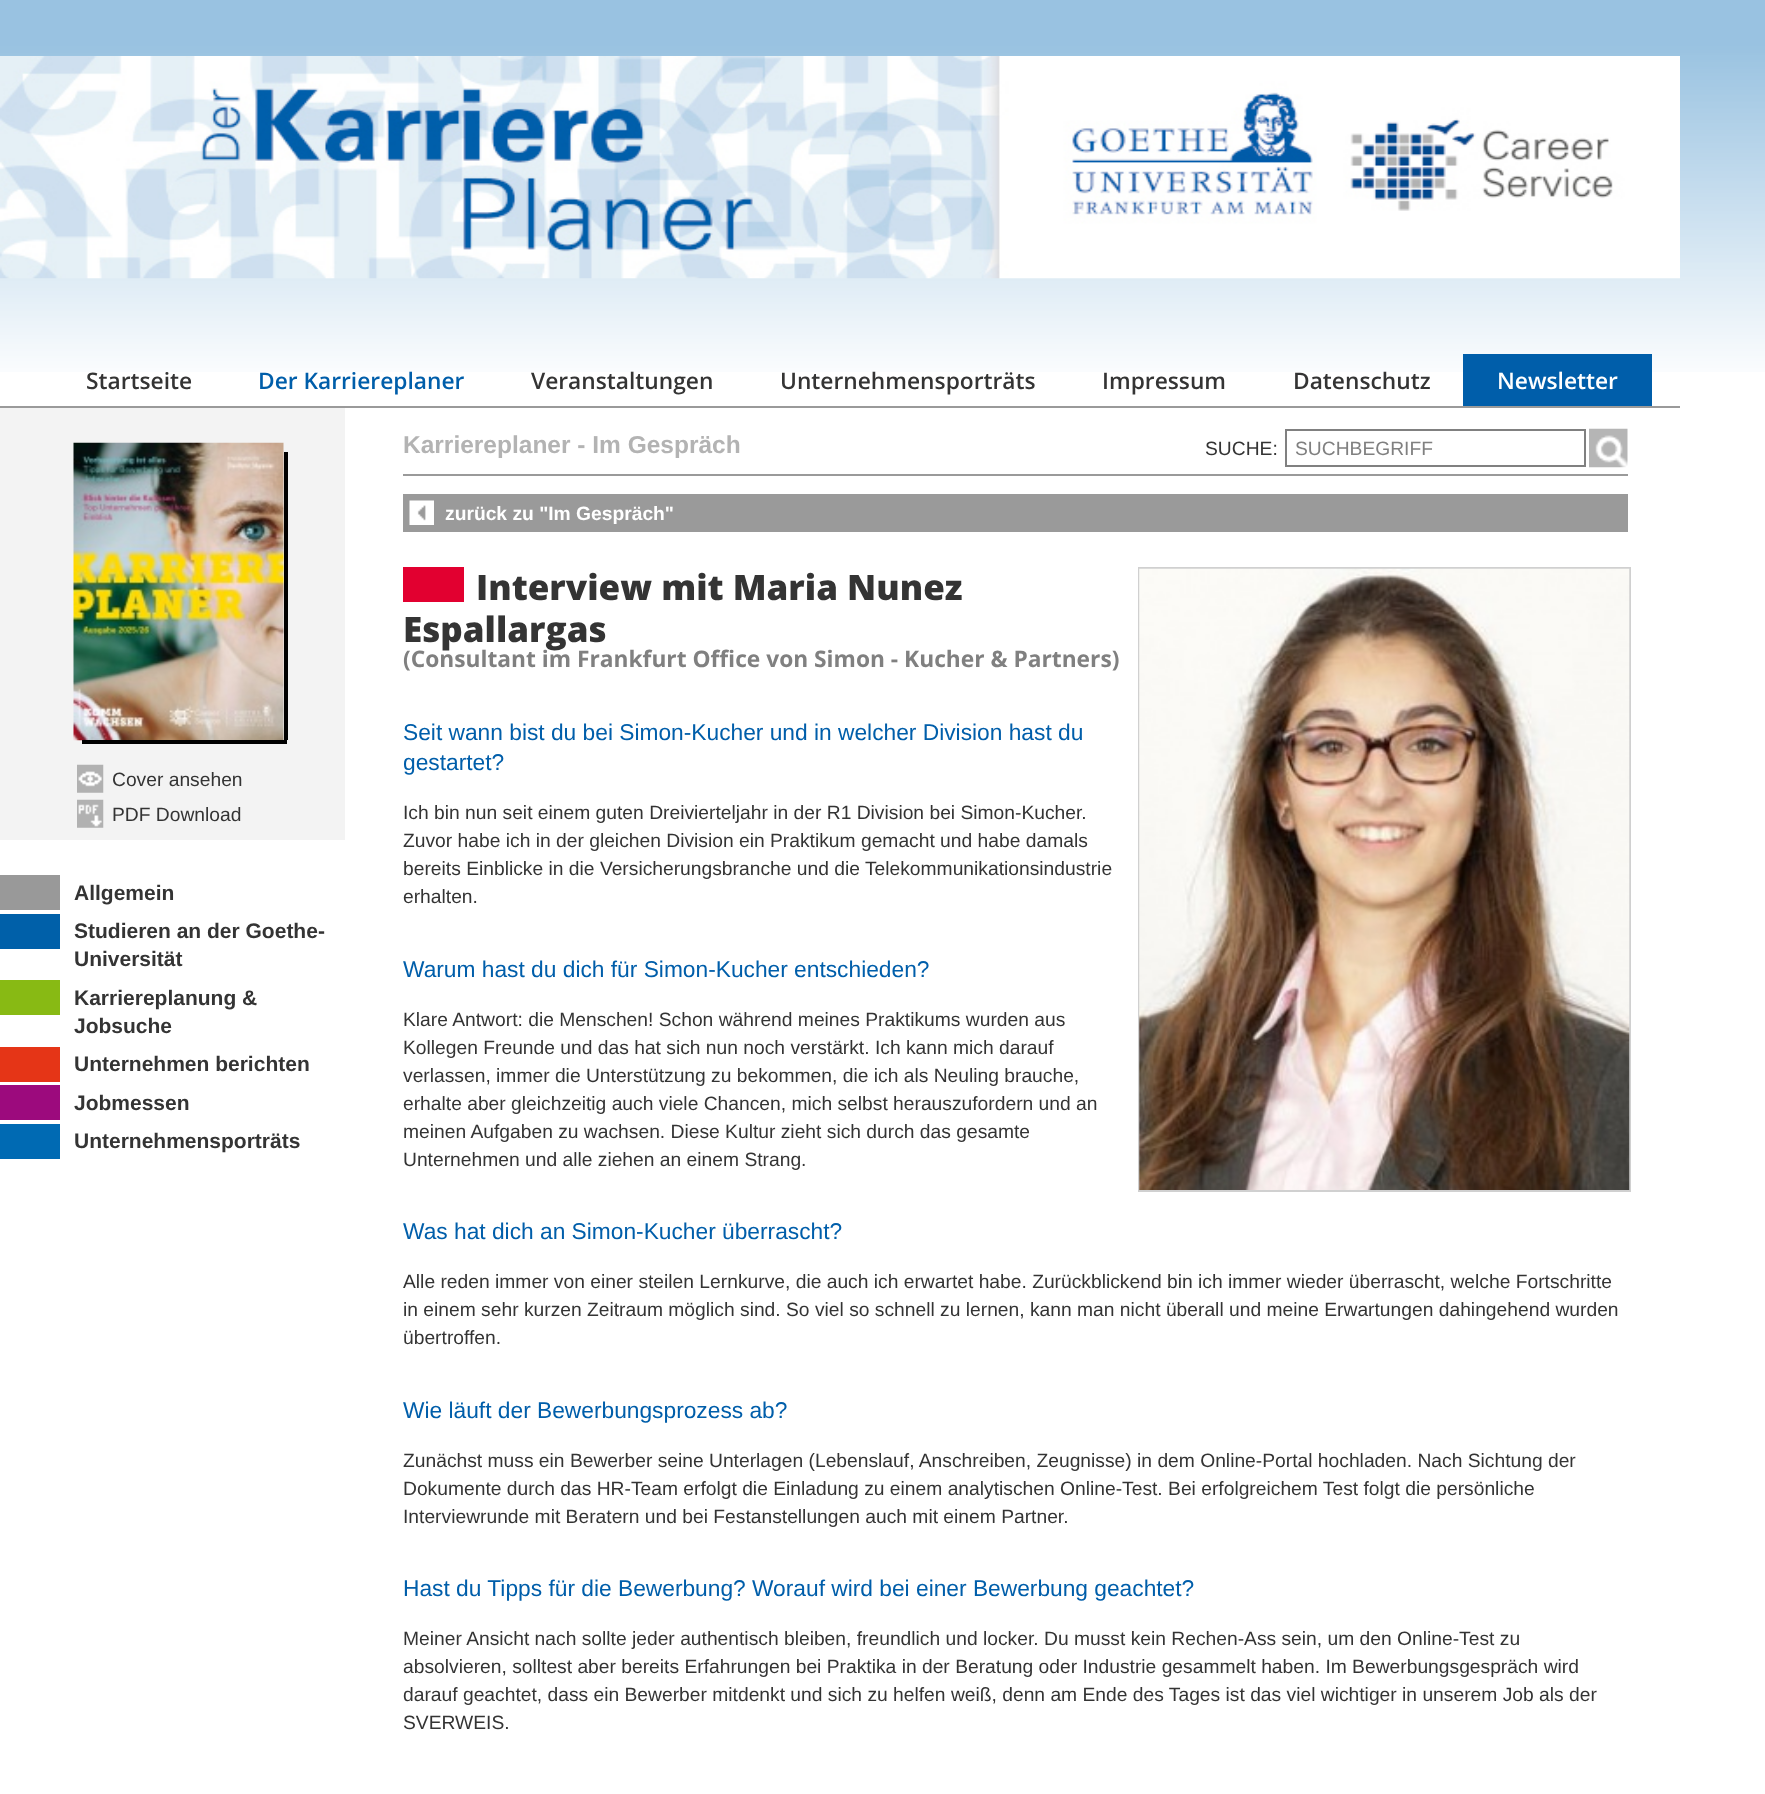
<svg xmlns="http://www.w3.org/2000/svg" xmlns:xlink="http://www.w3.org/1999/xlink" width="1765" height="1794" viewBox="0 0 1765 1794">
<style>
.cls-1{font:600 22.75px Open Sans;fill:#343434}
.cls-2{font:600 22.75px Open Sans;fill:#005eaa}
.cls-3{font:600 22.75px Open Sans;fill:#ffffff}
.cls-4{font:19.25px Liberation Sans;fill:#343434}
.cls-5{font:bold 21px Liberation Sans;fill:#343434}
.cls-6{font:bold 24.5px Liberation Sans;fill:#b3b3b3}
.cls-7{font:19.25px Liberation Sans;fill:#808080}
.cls-8{font:bold 19.25px Liberation Sans;fill:#ffffff}
.cls-9{font:800 35px Open Sans;fill:#343434}
.cls-10{font:bold 22.75px Open Sans;fill:#808080}
.cls-11{font:22.75px Liberation Sans;fill:#005eaa}
</style>
<rect width="100%" height="100%" fill="#ffffff"/>
<image xlink:href="image0.png" x="0" y="0" width="1765" height="372"/>
<image xlink:href="image1.png" x="0" y="56" width="1680" height="223"/>
<rect fill="#9a9a9a" x="0" y="406" width="1680" height="2"/>
<rect fill="#005eaa" x="1463" y="354" width="189" height="52"/>
<rect fill="#f3f3f3" x="0" y="408" width="345" height="432"/>
<image xlink:href="image2.png" x="73" y="442" width="211" height="299"/>
<rect fill="#000000" x="284" y="452" width="4" height="288"/>
<rect fill="#000000" x="82" y="740" width="205" height="4"/>
<image xlink:href="image3.png" x="77" y="764" width="27" height="29"/>
<image xlink:href="image4.png" x="77" y="799" width="27" height="29"/>
<rect fill="#999999" x="0" y="875" width="60" height="35"/>
<rect fill="#0060a9" x="0" y="914" width="60" height="35"/>
<rect fill="#88ba14" x="0" y="980" width="60" height="35"/>
<rect fill="#e53517" x="0" y="1047" width="60" height="35"/>
<rect fill="#9c0a7d" x="0" y="1085" width="60" height="35"/>
<rect fill="#006ab3" x="0" y="1124" width="60" height="35"/>
<rect fill="none" stroke="#808080" stroke-width="2" x="1286" y="430" width="299" height="36"/>
<image xlink:href="image5.png" x="1589" y="428" width="39" height="40"/>
<rect fill="#9a9a9a" x="403" y="474" width="1225" height="2"/>
<rect fill="#9a9a9a" x="403" y="494" width="1225" height="38"/>
<image xlink:href="image6.png" x="409" y="500" width="25" height="25"/>
<rect fill="#e20030" x="403" y="567" width="61" height="35"/>
<rect fill="none" stroke="#d0d0d0" stroke-width="2" x="1139" y="568" width="491" height="623"/>
<image xlink:href="image7.png" x="1139" y="568" width="491" height="622"/>
<text class="cls-1" x="86" y="389">Startseite</text>
<text class="cls-2" x="258" y="389">Der Karriereplaner</text>
<text class="cls-1" x="531" y="389">Veranstaltungen</text>
<text class="cls-1" x="780" y="389">Unternehmensporträts</text>
<text class="cls-1" x="1102" y="389">Impressum</text>
<text class="cls-1" x="1293" y="389">Datenschutz</text>
<text class="cls-3" x="1497" y="389">Newsletter</text>
<text class="cls-4"><tspan x="112" y="786">Cover ansehen</tspan><tspan x="112" y="821">PDF Download</tspan></text>
<text class="cls-5"><tspan x="74" y="900">Allgemein</tspan><tspan x="74" y="938">Studieren an der Goethe-</tspan><tspan x="74" y="966">Universität</tspan><tspan x="74" y="1005">Karriereplanung &amp;</tspan><tspan x="74" y="1033">Jobsuche</tspan><tspan x="74" y="1071">Unternehmen berichten</tspan><tspan x="74" y="1110">Jobmessen</tspan><tspan x="74" y="1148">Unternehmensporträts</tspan></text>
<text class="cls-6" x="403" y="453">Karriereplaner - Im Gespräch</text>
<text class="cls-4" x="1205" y="455">SUCHE:</text>
<text class="cls-7" x="1295" y="455">SUCHBEGRIFF</text>
<text class="cls-8" x="445" y="520">zurück zu "Im Gespräch"</text>
<text class="cls-9" x="476" y="600">Interview mit Maria Nunez</text>
<text class="cls-9" x="403" y="642">Espallargas</text>
<text class="cls-10" x="403" y="667">(Consultant im Frankfurt Office von Simon - Kucher &amp; Partners)</text>
<text class="cls-11"><tspan x="403" y="740">Seit wann bist du bei Simon-Kucher und in welcher Division hast du</tspan><tspan x="403" y="770">gestartet?</tspan></text>
<text class="cls-4"><tspan x="403" y="819">Ich bin nun seit einem guten Dreivierteljahr in der R1 Division bei Simon-Kucher.</tspan><tspan x="403" y="847">Zuvor habe ich in der gleichen Division ein Praktikum gemacht und habe damals</tspan><tspan x="403" y="875">bereits Einblicke in die Versicherungsbranche und die Telekommunikationsindustrie</tspan><tspan x="403" y="903">erhalten.</tspan></text>
<text class="cls-11" x="403" y="977">Warum hast du dich für Simon-Kucher entschieden?</text>
<text class="cls-4"><tspan x="403" y="1026">Klare Antwort: die Menschen! Schon während meines Praktikums wurden aus</tspan><tspan x="403" y="1054">Kollegen Freunde und das hat sich nun noch verstärkt. Ich kann mich darauf</tspan><tspan x="403" y="1082">verlassen, immer die Unterstützung zu bekommen, die ich als Neuling brauche,</tspan><tspan x="403" y="1110">erhalte aber gleichzeitig auch viele Chancen, mich selbst herauszufordern und an</tspan><tspan x="403" y="1138">meinen Aufgaben zu wachsen. Diese Kultur zieht sich durch das gesamte</tspan><tspan x="403" y="1166">Unternehmen und alle ziehen an einem Strang.</tspan></text>
<text class="cls-11" x="403" y="1239">Was hat dich an Simon-Kucher überrascht?</text>
<text class="cls-4"><tspan x="403" y="1288">Alle reden immer von einer steilen Lernkurve, die auch ich erwartet habe. Zurückblickend bin ich immer wieder überrascht, welche Fortschritte</tspan><tspan x="403" y="1316">in einem sehr kurzen Zeitraum möglich sind. So viel so schnell zu lernen, kann man nicht überall und meine Erwartungen dahingehend wurden</tspan><tspan x="403" y="1344">übertroffen.</tspan></text>
<text class="cls-11" x="403" y="1418">Wie läuft der Bewerbungsprozess ab?</text>
<text class="cls-4"><tspan x="403" y="1467">Zunächst muss ein Bewerber seine Unterlagen (Lebenslauf, Anschreiben, Zeugnisse) in dem Online-Portal hochladen. Nach Sichtung der</tspan><tspan x="403" y="1495">Dokumente durch das HR-Team erfolgt die Einladung zu einem analytischen Online-Test. Bei erfolgreichem Test folgt die persönliche</tspan><tspan x="403" y="1523">Interviewrunde mit Beratern und bei Festanstellungen auch mit einem Partner.</tspan></text>
<text class="cls-11" x="403" y="1596">Hast du Tipps für die Bewerbung? Worauf wird bei einer Bewerbung geachtet?</text>
<text class="cls-4"><tspan x="403" y="1645">Meiner Ansicht nach sollte jeder authentisch bleiben, freundlich und locker. Du musst kein Rechen-Ass sein, um den Online-Test zu</tspan><tspan x="403" y="1673">absolvieren, solltest aber bereits Erfahrungen bei Praktika in der Beratung oder Industrie gesammelt haben. Im Bewerbungsgespräch wird</tspan><tspan x="403" y="1701">darauf geachtet, dass ein Bewerber mitdenkt und sich zu helfen weiß, denn am Ende des Tages ist das viel wichtiger in unserem Job als der</tspan><tspan x="403" y="1729">SVERWEIS.</tspan></text>
</svg>
